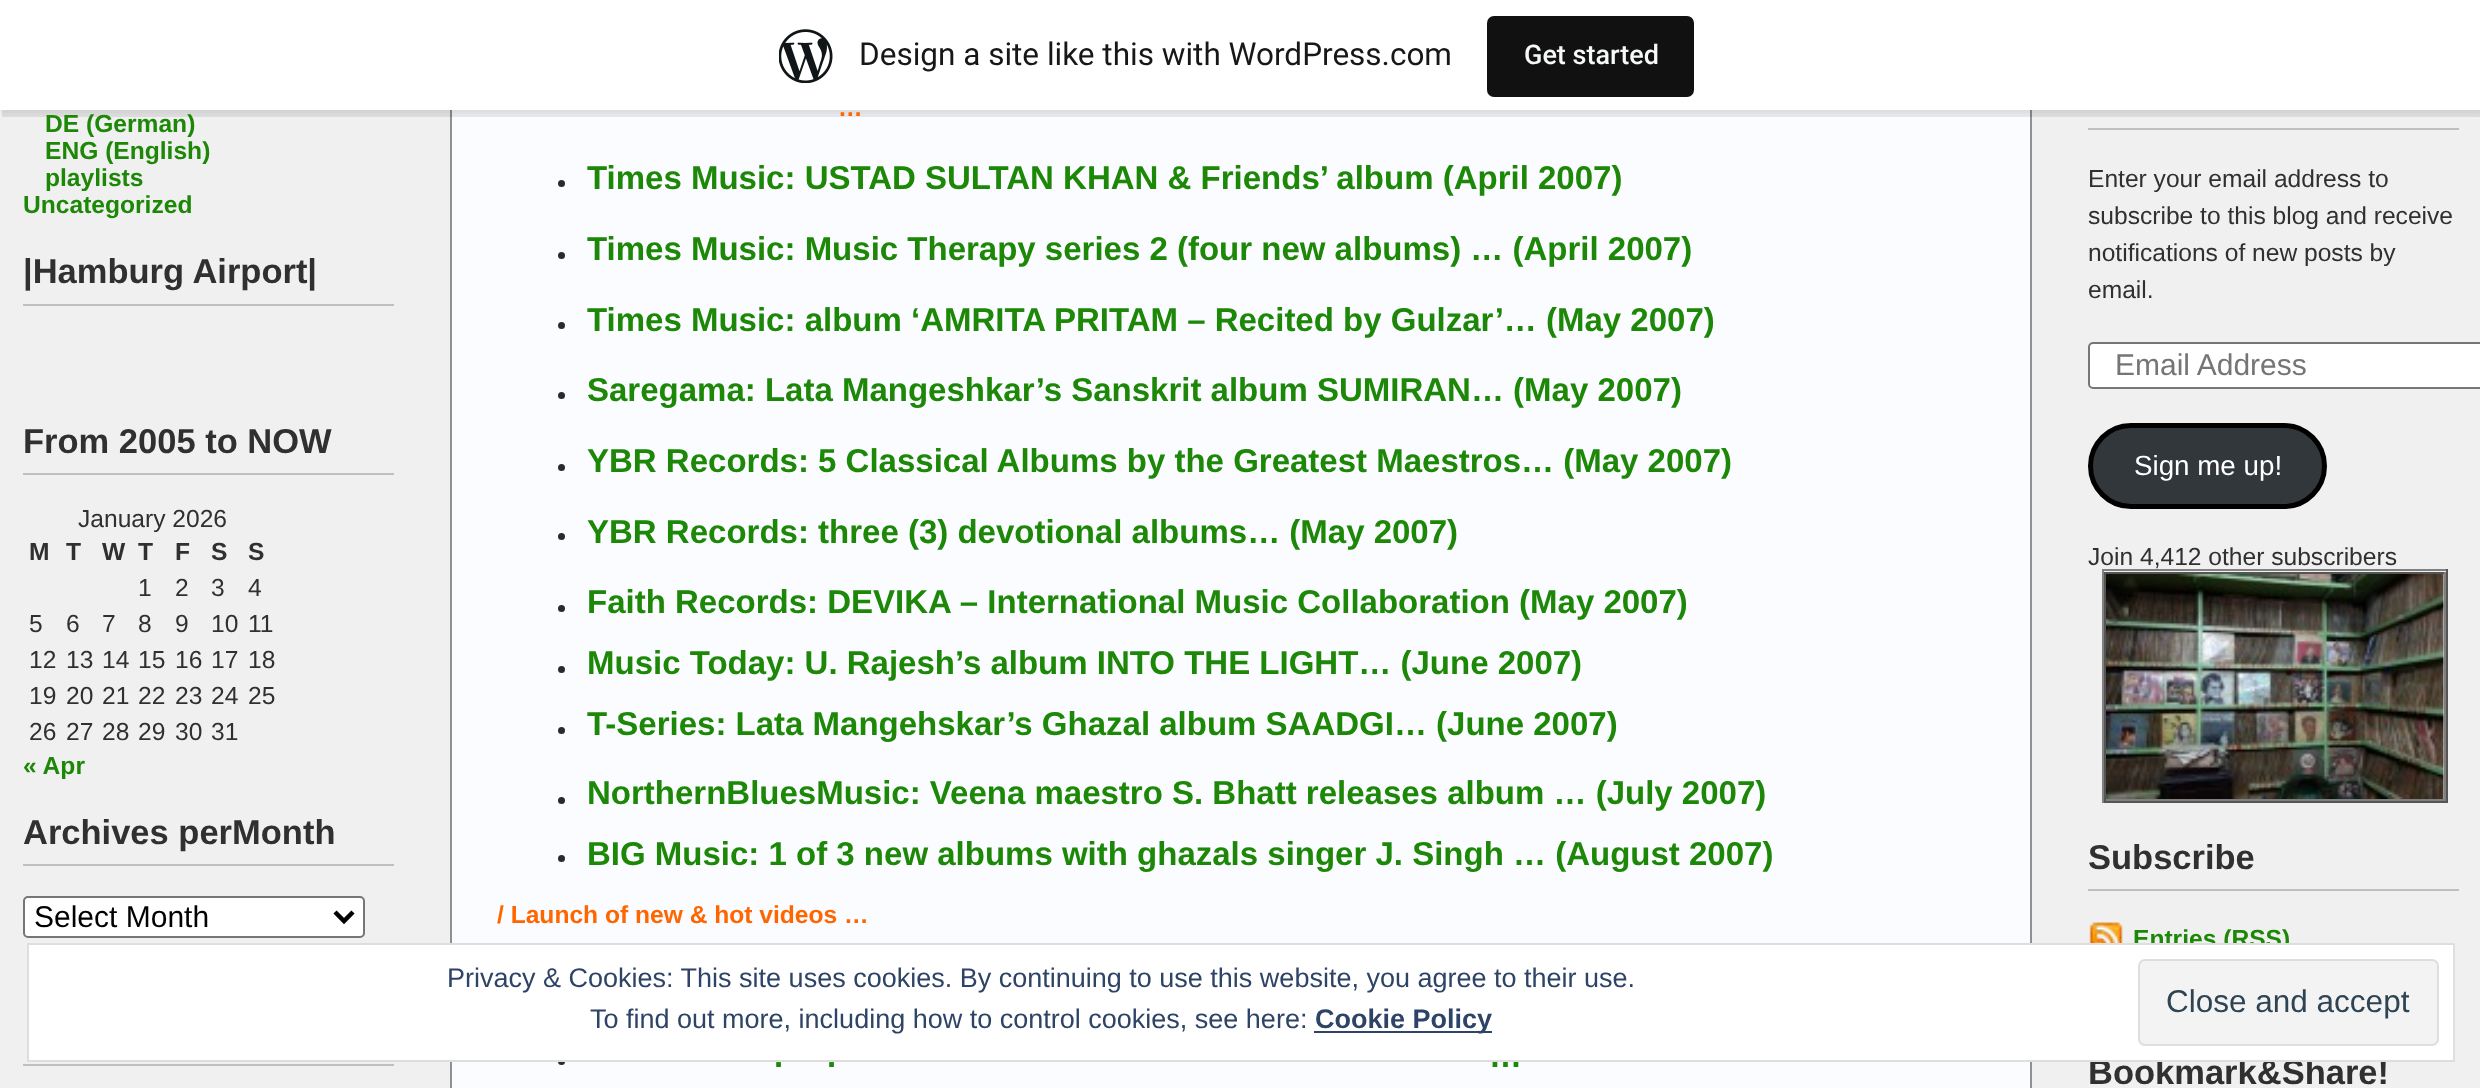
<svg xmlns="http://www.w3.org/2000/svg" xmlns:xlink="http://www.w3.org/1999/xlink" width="2480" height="1088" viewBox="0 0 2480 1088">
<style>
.cls-1{font:31.5px Roboto;fill:#171717}
.cls-2{font:500 27px Roboto;fill:#f6f7f7}
.cls-3{font:bold 24.6px Liberation Sans;fill:#1d8807}
.cls-4{font:bold 34.5px Liberation Sans;fill:#303030}
.cls-5{font:24.6px Liberation Sans;fill:#303030}
.cls-6{font:bold 24.6px Liberation Sans;fill:#303030}
.cls-7{font:30px Liberation Sans;fill:#000000}
.cls-8{font:bold 24.6px Liberation Sans;fill:#ff6600}
.cls-9{font:bold 33px Liberation Sans;fill:#1d8807}
.cls-10{font:30px Liberation Sans;fill:#757575}
.cls-11{font:27.75px Liberation Sans;fill:#ffffff}
.cls-12{font:27px Liberation Sans;fill:#2e4467}
.cls-13{font:bold 27px Liberation Sans;fill:#2e4467}
.cls-14{font:31.5px Liberation Sans;fill:#2e4453}
</style>
<rect width="100%" height="100%" fill="#f0f0f0"/>
<rect fill="#fafcff" x="452" y="110" width="1578" height="978"/>
<rect fill="none" stroke="#909090" stroke-width="2" x="451" y="-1" width="1580" height="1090"/>
<rect fill="#000000" fill-opacity="0.05" filter="blur(2px)" x="0" y="2" width="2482" height="111"/>
<path fill="#000000" fill-opacity="0.08" d="M2 110V117H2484V7H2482V110Z"/>
<rect fill="#ffffff" x="0" y="0" width="2480" height="110"/>
<image xlink:href="image0.png" x="779" y="29" width="54" height="54"/>
<rect fill="#111111" x="1487" y="16" width="207" height="81" rx="7"/>
<rect fill="#bebfc3" x="23" y="304" width="371" height="2"/>
<rect fill="#bebfc3" x="23" y="473" width="371" height="2"/>
<rect fill="#bebfc3" x="23" y="864" width="371" height="2"/>
<rect fill="#ffffff" stroke="#767676" stroke-width="2" x="24" y="897" width="340" height="40" rx="4"/>
<path fill="none" stroke="#000000" stroke-width="4.5" d="M335 912L344 921L353 912"/>
<rect fill="#bebfc3" x="23" y="1064" width="371" height="2"/>
<circle fill="#2a2a2a" cx="561.5" cy="183.5" r="3.5"/>
<circle fill="#2a2a2a" cx="561.5" cy="255.5" r="3.5"/>
<circle fill="#2a2a2a" cx="561.5" cy="325.5" r="3.5"/>
<circle fill="#2a2a2a" cx="561.5" cy="395.5" r="3.5"/>
<circle fill="#2a2a2a" cx="561.5" cy="467.5" r="3.5"/>
<circle fill="#2a2a2a" cx="561.5" cy="536.5" r="3.5"/>
<circle fill="#2a2a2a" cx="561.5" cy="608.5" r="3.5"/>
<circle fill="#2a2a2a" cx="561.5" cy="669.5" r="3.5"/>
<circle fill="#2a2a2a" cx="561.5" cy="730.5" r="3.5"/>
<circle fill="#2a2a2a" cx="561.5" cy="800.5" r="3.5"/>
<circle fill="#2a2a2a" cx="561.5" cy="858.5" r="3.5"/>
<circle fill="#2a2a2a" cx="561.5" cy="1061.5" r="3.5"/>
<rect fill="#bebfc3" x="2088" y="128" width="371" height="2"/>
<path fill="#ffffff" d="M2093 342H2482V389H2093C2090 389 2088 387 2088 384V347C2088 344 2090 342 2093 342Z"/>
<rect fill="none" stroke="#767676" stroke-width="2" x="2089" y="343" width="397" height="45" rx="4"/>
<rect fill="#32373c" stroke="#000000" stroke-width="5" x="2090.5" y="425.5" width="234" height="81" rx="40.5"/>
<rect fill="#808080" x="2102" y="569" width="346" height="2"/>
<rect fill="#555555" x="2446" y="569" width="2" height="234"/>
<rect fill="#555555" x="2102" y="801" width="346" height="2"/>
<rect fill="#808080" x="2102" y="569" width="2" height="234"/>
<rect fill="#555555" x="2104" y="572" width="342" height="2"/>
<rect fill="#808080" x="2444" y="572" width="2" height="229"/>
<rect fill="#808080" x="2104" y="799" width="342" height="2"/>
<rect fill="#555555" x="2104" y="572" width="2" height="229"/>
<image xlink:href="image1.png" x="2106" y="574" width="338" height="225"/>
<rect fill="#bebfc3" x="2088" y="889" width="371" height="2"/>
<image xlink:href="image2.png" x="2089" y="922" width="34" height="21"/>
<text class="cls-1" x="859" y="65">Design a site like this with WordPress.com</text>
<text class="cls-2" x="1524" y="64">Get started</text>
<text class="cls-3"><tspan x="45" y="132">DE (German)</tspan><tspan x="45" y="159">ENG (English)</tspan><tspan x="45" y="186">playlists</tspan></text>
<text class="cls-3" x="23" y="213">Uncategorized</text>
<text class="cls-4" x="23" y="283">|Hamburg Airport|</text>
<text class="cls-4" x="23" y="453">From 2005 to NOW</text>
<text class="cls-5" x="78" y="527">January 2026</text>
<text class="cls-6" x="29" y="560">M</text>
<text class="cls-6" x="66" y="560">T</text>
<text class="cls-6" x="102" y="560">W</text>
<text class="cls-6" x="138" y="560">T</text>
<text class="cls-6" x="175" y="560">F</text>
<text class="cls-6" x="211" y="560">S</text>
<text class="cls-6" x="248" y="560">S</text>
<text class="cls-5" x="138" y="596">1</text>
<text class="cls-5" x="175" y="596">2</text>
<text class="cls-5" x="211" y="596">3</text>
<text class="cls-5" x="248" y="596">4</text>
<text class="cls-5" x="29" y="632">5</text>
<text class="cls-5" x="66" y="632">6</text>
<text class="cls-5" x="102" y="632">7</text>
<text class="cls-5" x="138" y="632">8</text>
<text class="cls-5" x="175" y="632">9</text>
<text class="cls-5" x="211" y="632">10</text>
<text class="cls-5" x="248" y="632">11</text>
<text class="cls-5" x="29" y="668">12</text>
<text class="cls-5" x="66" y="668">13</text>
<text class="cls-5" x="102" y="668">14</text>
<text class="cls-5" x="138" y="668">15</text>
<text class="cls-5" x="175" y="668">16</text>
<text class="cls-5" x="211" y="668">17</text>
<text class="cls-5" x="248" y="668">18</text>
<text class="cls-5" x="29" y="704">19</text>
<text class="cls-5" x="66" y="704">20</text>
<text class="cls-5" x="102" y="704">21</text>
<text class="cls-5" x="138" y="704">22</text>
<text class="cls-5" x="175" y="704">23</text>
<text class="cls-5" x="211" y="704">24</text>
<text class="cls-5" x="248" y="704">25</text>
<text class="cls-5" x="29" y="740">26</text>
<text class="cls-5" x="66" y="740">27</text>
<text class="cls-5" x="102" y="740">28</text>
<text class="cls-5" x="138" y="740">29</text>
<text class="cls-5" x="175" y="740">30</text>
<text class="cls-5" x="211" y="740">31</text>
<text class="cls-3" x="23" y="774">« Apr</text>
<text class="cls-4" x="23" y="844">Archives perMonth</text>
<text class="cls-7" x="34" y="927">Select Month</text>
<text class="cls-8" x="838" y="116">…</text>
<text class="cls-9" x="587" y="189">Times Music: USTAD SULTAN KHAN &amp; Friends’ album (April 2007)</text>
<text class="cls-9" x="587" y="260">Times Music: Music Therapy series 2 (four new albums) … (April 2007)</text>
<text class="cls-9" x="587" y="331">Times Music: album ‘AMRITA PRITAM – Recited by Gulzar’… (May 2007)</text>
<text class="cls-9" x="587" y="401">Saregama: Lata Mangeshkar’s Sanskrit album SUMIRAN… (May 2007)</text>
<text class="cls-9" x="587" y="472">YBR Records: 5 Classical Albums by the Greatest Maestros… (May 2007)</text>
<text class="cls-9" x="587" y="543">YBR Records: three (3) devotional albums… (May 2007)</text>
<text class="cls-9"><tspan x="587" y="613">Faith Records: DEVIKA – International Music Collaboration (May 2007)</tspan><tspan x="587" y="674">Music Today: U. Rajesh’s album INTO THE LIGHT… (June 2007)</tspan><tspan x="587" y="735">T-Series: Lata Mangehskar’s Ghazal album SAADGI… (June 2007)</tspan></text>
<text class="cls-9"><tspan x="587" y="804">NorthernBluesMusic: Veena maestro S. Bhatt releases album … (July 2007)</tspan><tspan x="587" y="865">BIG Music: 1 of 3 new albums with ghazals singer J. Singh … (August 2007)</tspan></text>
<text class="cls-8" x="497" y="923">/ Launch of new &amp; hot videos …</text>
<text class="cls-9" x="774" y="1067">.</text>
<text class="cls-9" x="827" y="1067">.</text>
<text class="cls-9" x="1489" y="1067">…</text>
<text class="cls-5"><tspan x="2088" y="187">Enter your email address to</tspan><tspan x="2088" y="224">subscribe to this blog and receive</tspan><tspan x="2088" y="261">notifications of new posts by</tspan><tspan x="2088" y="298">email.</tspan></text>
<text class="cls-10" x="2115" y="375">Email Address</text>
<text class="cls-11" x="2134" y="475">Sign me up!</text>
<text class="cls-5" x="2088" y="565">Join 4,412 other subscribers</text>
<text class="cls-4" x="2088" y="869">Subscribe</text>
<text class="cls-3" x="2133" y="947">Entries (RSS)</text>
<text class="cls-4" x="2088" y="1084">Bookmark&amp;Share!</text>
<rect fill="#ffffff" stroke="#dedede" stroke-width="2" x="28" y="944" width="2426" height="117"/>
<text class="cls-12" x="447" y="987">Privacy &amp; Cookies: This site uses cookies. By continuing to use this website, you agree to their use.</text>
<text class="cls-12" x="590" y="1028">To find out more, including how to control cookies, see here:</text>
<rect fill="#2e4467" x="1314" y="1031" width="178" height="2"/>
<text class="cls-13" x="1315" y="1028">Cookie Policy</text>
<rect fill="#f3f3f3" stroke="#dedede" stroke-width="2" x="2139" y="960" width="299" height="85" rx="6"/>
<text class="cls-14" x="2166" y="1012">Close and accept</text>
</svg>
